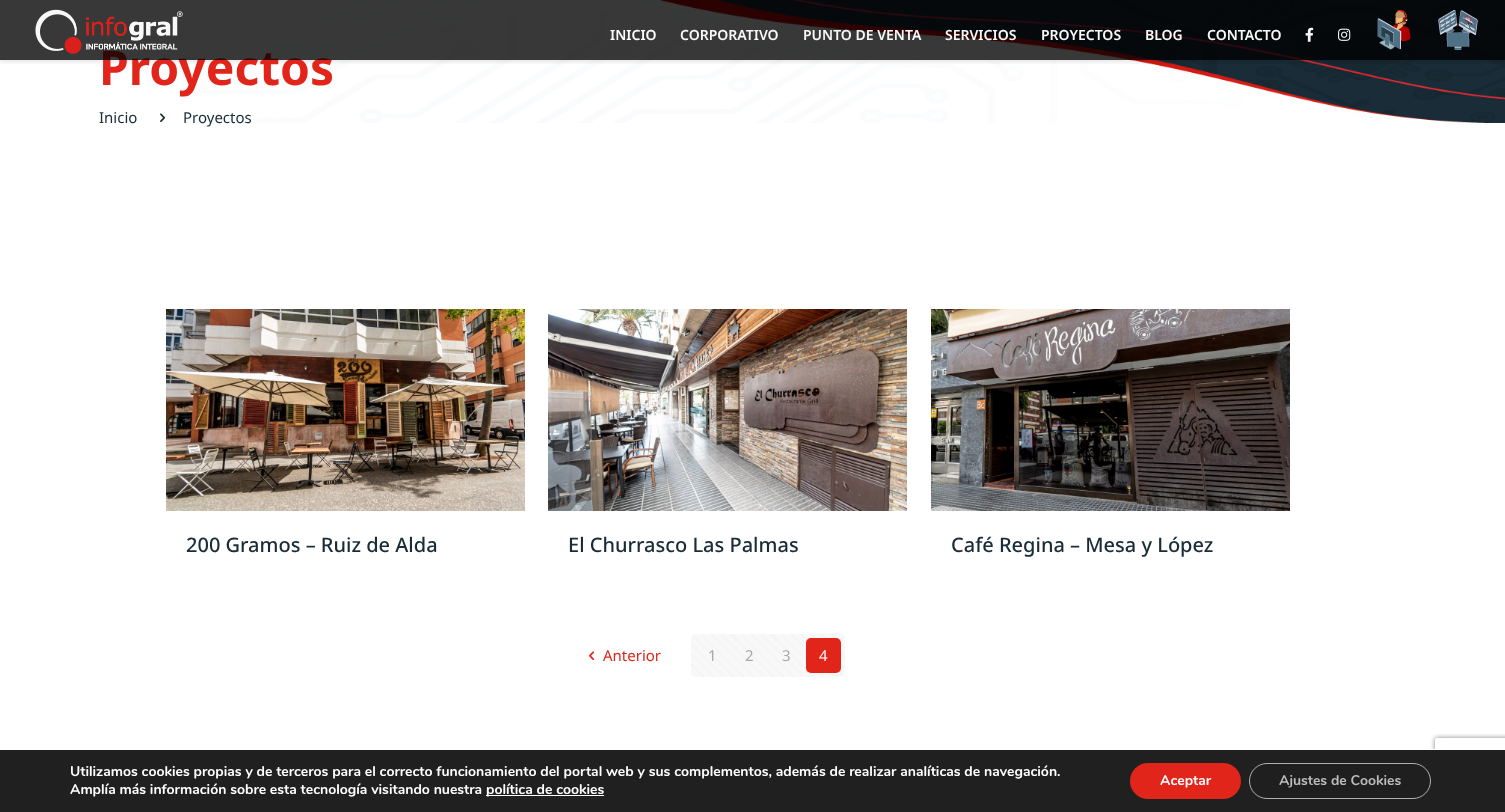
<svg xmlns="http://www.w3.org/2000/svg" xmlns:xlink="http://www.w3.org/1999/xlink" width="1505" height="812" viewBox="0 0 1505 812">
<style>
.cls-1{font:bold 48px Noto Sans;fill:#e1251b}
.cls-2{font:600 14px Noto Sans;fill:#f9f9f9}
.cls-3{font:600 14px Noto Sans;fill:#ffffff}
.cls-4{font:15px Noto Sans;fill:#192c37}
.cls-5{font:500 20px Noto Sans;fill:#192c37}
.cls-6{font:15px Noto Sans;fill:#e1251b}
.cls-7{font:15px Noto Sans;fill:#a8a8a8}
.cls-8{font:15px Noto Sans;fill:#ffffff}
.cls-9{font:bold 14px Nunito;fill:#ffffff}
.cls-10{font:bold 14px Nunito;fill:#bcbcbc}
</style>
<defs>
<clipPath id="clip1"><rect x="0" y="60" width="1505" height="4"/></clipPath>
<clipPath id="clip2"><path d="M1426 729H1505V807H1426ZM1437 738H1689C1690 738 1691 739 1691 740V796C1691 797 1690 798 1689 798H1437C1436 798 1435 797 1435 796V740C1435 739 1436 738 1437 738Z" clip-rule="evenodd"/></clipPath>
</defs>
<rect width="100%" height="100%" fill="#ffffff"/>
<image xlink:href="image5.png" x="183" y="0" width="1322" height="123"/>
<g clip-path="url(#clip1)">
<rect fill="#000000" fill-opacity="0.1" filter="blur(2.5px)" x="0" y="2" width="1505" height="60"/>
</g>
<image xlink:href="image6.png" x="160" y="113" width="6" height="9"/>
<image xlink:href="image7.png" x="166" y="309" width="359" height="202"/>
<image xlink:href="image8.png" x="548" y="309" width="359" height="202"/>
<image xlink:href="image9.png" x="931" y="309" width="359" height="202"/>
<image xlink:href="image10.png" x="589" y="651" width="6" height="10"/>
<rect fill="#f8f8f8" x="691" y="634" width="154" height="43" rx="5"/>
<image xlink:href="image11.png" x="691" y="634" width="154" height="43"/>
<rect fill="#e1251b" x="806" y="638" width="35" height="35" rx="5"/>
<g clip-path="url(#clip2)">
<rect fill="#808080" filter="blur(2.5px)" x="1435" y="738" width="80" height="60" rx="2"/>
</g>
<rect fill="#202020" x="0" y="750" width="1505" height="62"/>
<rect fill="#ffffff" x="1430" y="749" width="5" height="1"/>
<rect fill="#ffffff" x="486" y="795" width="118" height="1"/>
<rect fill="#e1251b" x="1130" y="763" width="111" height="36" rx="18"/>
<rect fill="none" stroke="#bcbcbc" x="1249.5" y="763.5" width="181" height="35" rx="17.5"/>
<rect fill="#202020" fill-opacity="0.07" x="1249" y="763" width="182" height="36" rx="18"/>
<text class="cls-1" x="99" y="85">Proyectos</text>
<rect fill="#000000" fill-opacity="0.78" x="0" y="0" width="1505" height="60"/>
<image xlink:href="image4.png" x="1438" y="10" width="40" height="40"/>
<image xlink:href="image3.png" x="1377" y="10" width="34" height="40"/>
<image xlink:href="image2.png" x="1338" y="28" width="13" height="13"/>
<image xlink:href="image1.png" x="1305" y="27" width="9" height="15"/>
<text class="cls-2" x="1207" y="40">CONTACTO</text>
<text class="cls-2" x="1145" y="40">BLOG</text>
<text class="cls-2" x="1041" y="40">PROYECTOS</text>
<text class="cls-2" x="945" y="40">SERVICIOS</text>
<text class="cls-2" x="803" y="40">PUNTO DE VENTA</text>
<text class="cls-2" x="680" y="40">CORPORATIVO</text>
<text class="cls-3" x="610" y="40">INICIO</text>
<image xlink:href="image0.png" x="35" y="9" width="148" height="45"/>
<text class="cls-4" x="99" y="123">Inicio</text>
<text class="cls-4" x="183" y="123">Proyectos</text>
<text class="cls-5" x="186" y="552">200 Gramos – Ruiz de Alda</text>
<text class="cls-5" x="568" y="552">El Churrasco Las Palmas</text>
<text class="cls-5" x="951" y="552">Café Regina – Mesa y López</text>
<text class="cls-6" x="603" y="661">Anterior</text>
<text class="cls-7" x="708" y="661">1</text>
<text class="cls-7" x="745" y="661">2</text>
<text class="cls-7" x="782" y="661">3</text>
<text class="cls-8" x="819" y="661">4</text>
<text class="cls-9"><tspan x="70" y="776">Utilizamos cookies propias y de terceros para el correcto funcionamiento del portal web y sus complementos, además de realizar analíticas de navegación.</tspan><tspan x="70" y="794">Amplía más información sobre esta tecnología visitando nuestra</tspan></text>
<text class="cls-9" x="486" y="794">política de cookies</text>
<text class="cls-9" x="1160" y="785">Aceptar</text>
<text class="cls-10" x="1279" y="785">Ajustes de Cookies</text>
</svg>
